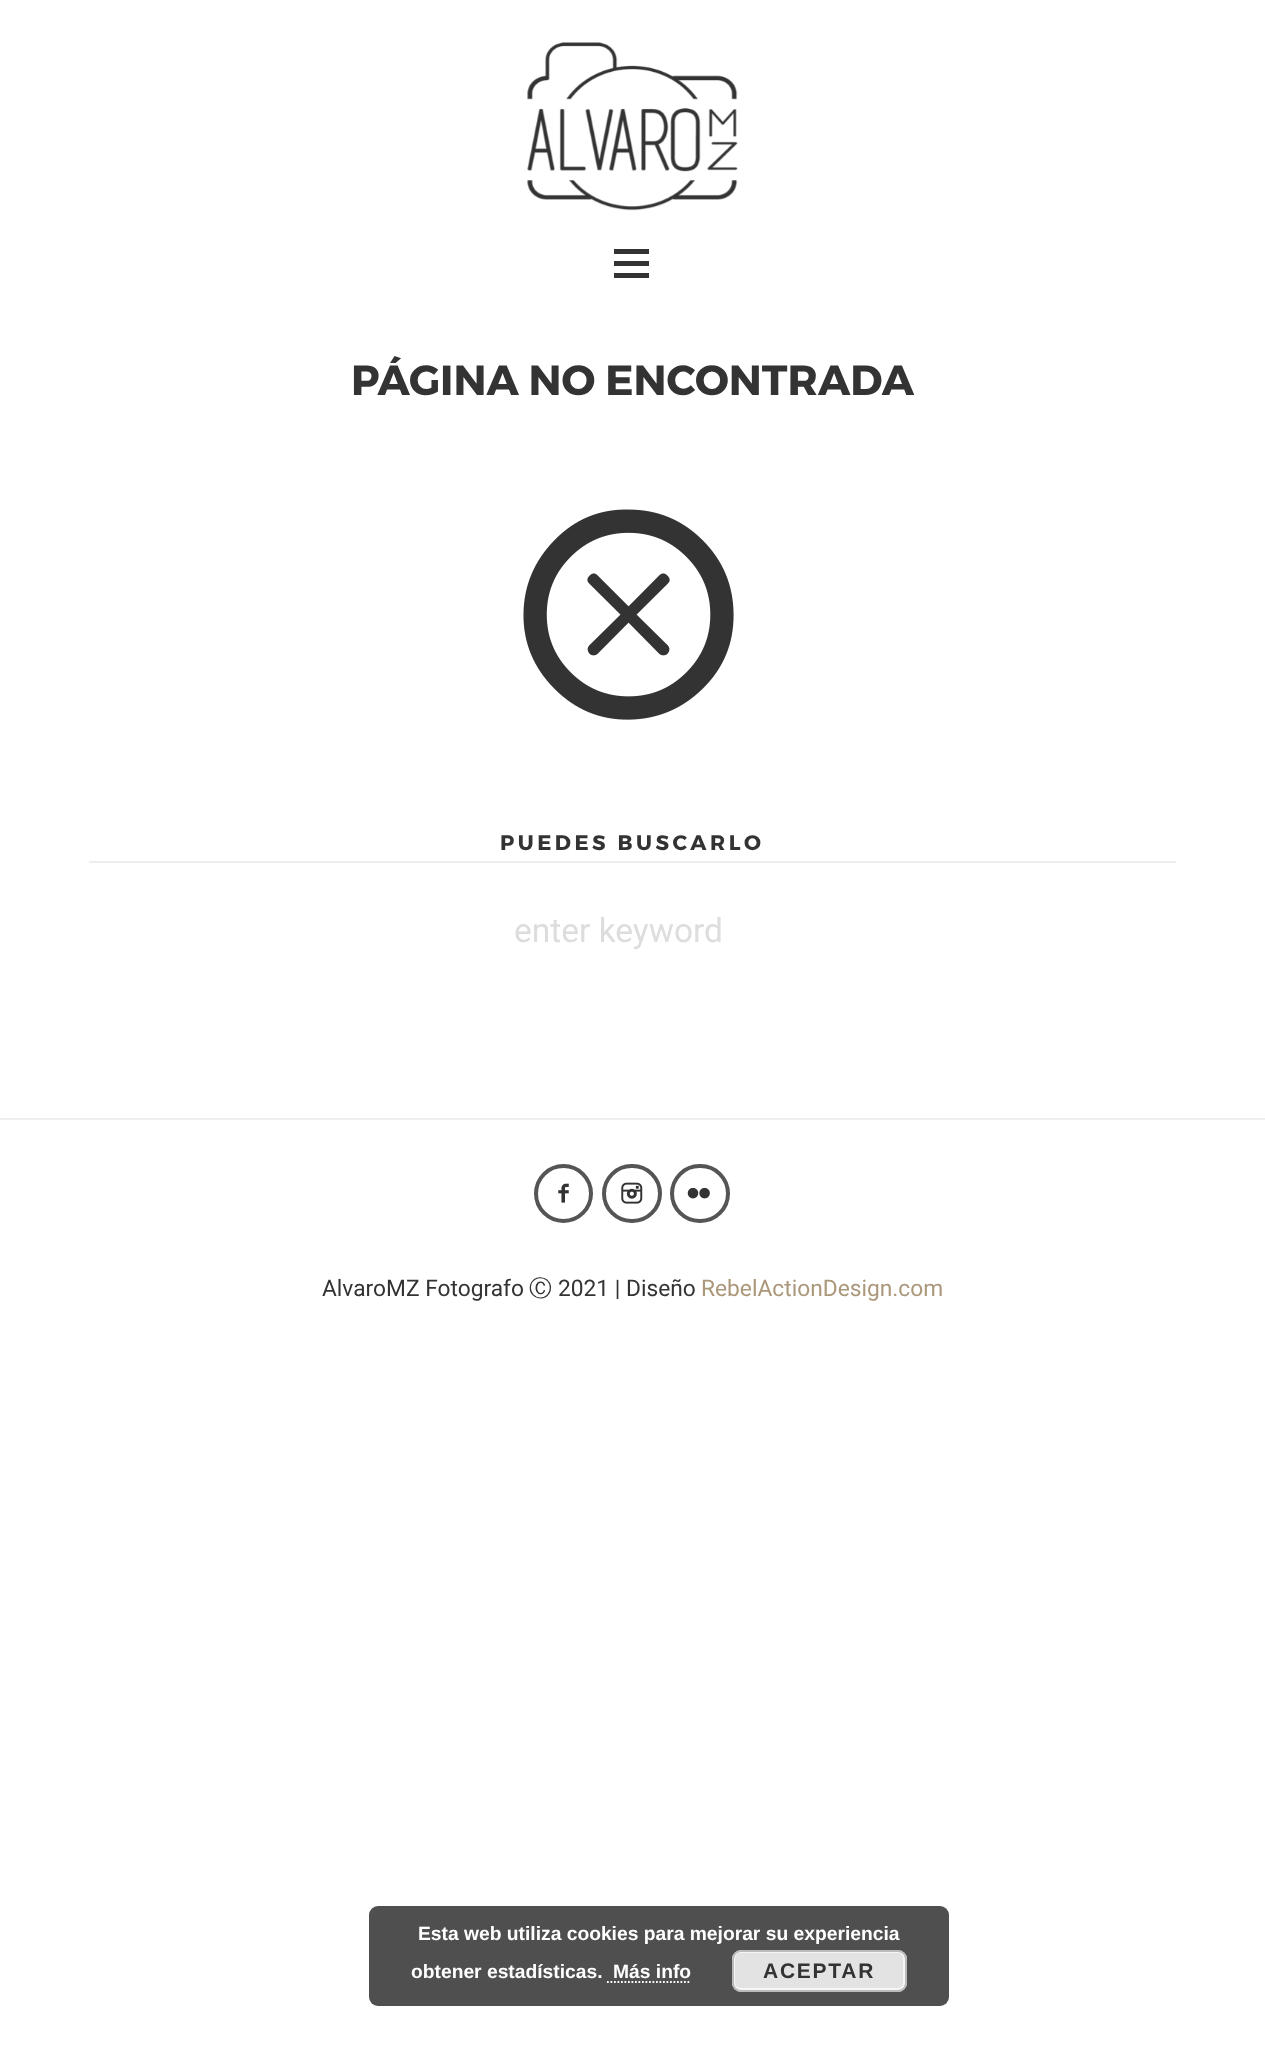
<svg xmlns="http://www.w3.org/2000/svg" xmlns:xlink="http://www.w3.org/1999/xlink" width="1265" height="2057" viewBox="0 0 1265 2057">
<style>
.cls-1{font:bold 42px Montserrat;fill:#333333}
.cls-2{font:bold 21px Montserrat;letter-spacing:3.5px;fill:#333333}
.cls-3{font:33.5px Roboto;fill:#dddddd}
.cls-4{font:22.75px Roboto;fill:#333333}
.cls-5{font:500 22.75px WenQuanYi Zen Hei;fill:#333333}
.cls-6{font:22.75px Roboto;fill:#ab977a}
.cls-7{font:bold 19.25px Liberation Sans;fill:#ffffff}
.cls-8{font:bold 21px Liberation Sans;letter-spacing:1.75px;fill:#333333}
</style>
<rect width="100%" height="100%" fill="#ffffff"/>
<image xlink:href="image0.png" x="527" y="42" width="211" height="169"/>
<rect fill="#333333" x="614" y="261" width="35" height="5"/>
<rect fill="#333333" x="614" y="249" width="35" height="5"/>
<rect fill="#333333" x="614" y="273" width="35" height="5"/>
<image xlink:href="image1.png" x="523" y="509" width="211" height="211"/>
<rect fill="#eeeeee" x="89" y="861" width="1087" height="2"/>
<rect fill="#eeeeee" x="0" y="1118" width="1265" height="2"/>
<circle fill="none" stroke="#555555" stroke-width="4" cx="563.5" cy="1193.5" r="27.5"/>
<image xlink:href="image2.png" x="558" y="1183" width="11" height="20"/>
<rect fill="none" stroke="#555555" stroke-width="4" x="604" y="1166" width="56" height="55" rx="27.5"/>
<image xlink:href="image3.png" x="621" y="1182" width="22" height="22"/>
<rect fill="none" stroke="#555555" stroke-width="4" x="672" y="1166" width="56" height="55" rx="27.5"/>
<image xlink:href="image4.png" x="687" y="1187" width="23" height="12"/>
<rect fill="#4f4f4f" x="369" y="1906" width="580" height="100" rx="9"/>
<path fill="none" stroke="#ffffff" stroke-width="1.8" stroke-dasharray="1.75 1.75" d="M607 1982H691"/>
<rect fill="#e3e3e3" x="732" y="1950" width="175" height="42" rx="9"/>
<rect fill="none" stroke="#f6f6f6" stroke-width="2" x="734" y="1952" width="170" height="37" rx="6"/>
<rect fill="none" stroke="#bbbbbb" stroke-width="2" x="733" y="1951" width="173" height="40" rx="8"/>
<text class="cls-1" x="351" y="395">PÁGINA NO ENCONTRADA</text>
<text class="cls-2" x="500" y="850">PUEDES BUSCARLO</text>
<text class="cls-3" x="514" y="942">enter keyword</text>
<text class="cls-4" x="322" y="1296">AlvaroMZ Fotografo</text>
<text class="cls-5" x="529" y="1296">Ⓒ</text>
<text class="cls-4" x="558" y="1296">2021 | Diseño</text>
<text class="cls-6" x="701" y="1296">RebelActionDesign.com</text>
<text class="cls-7" x="418" y="1940">Esta web utiliza cookies para mejorar su experiencia</text>
<text class="cls-7" x="411" y="1978">obtener estadísticas.</text>
<text class="cls-7" x="613" y="1978">Más info</text>
<text class="cls-8" x="763" y="1978">ACEPTAR</text>
</svg>
